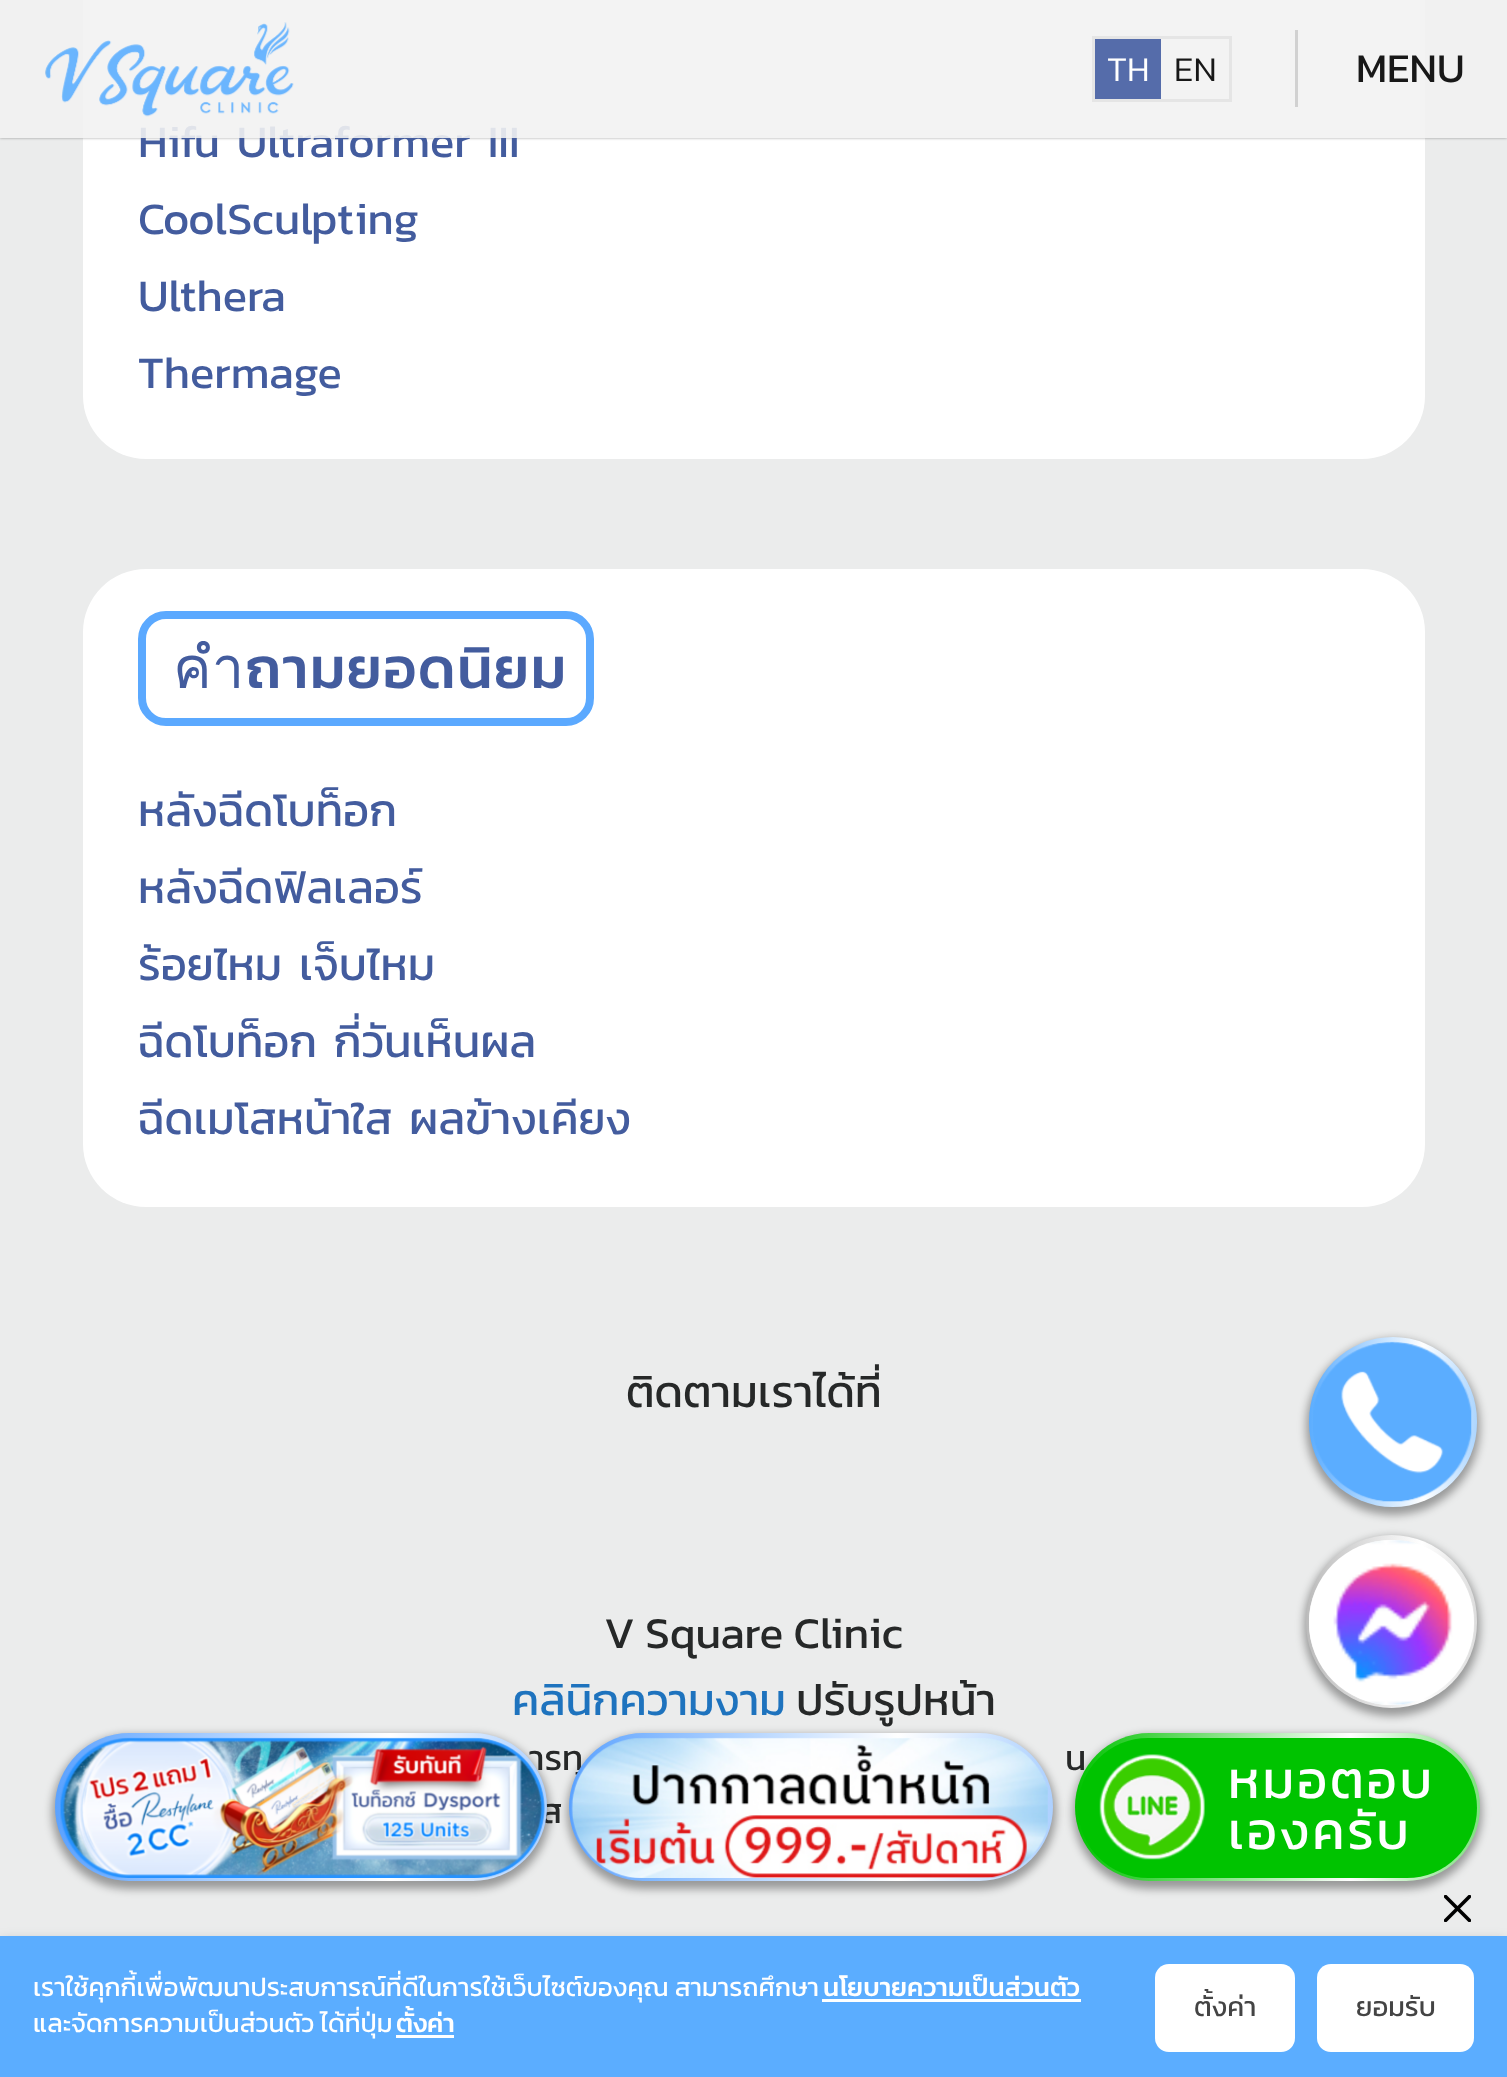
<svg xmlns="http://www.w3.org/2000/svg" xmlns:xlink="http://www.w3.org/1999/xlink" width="1507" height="2077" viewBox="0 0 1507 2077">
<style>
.cls-1{font:44px kanit;fill:#435c9e}
.cls-2{font:300 35px Kanit;fill:#181818}
.cls-3{font:300 35px Kanit;fill:#ffffff}
.cls-4{font:41px 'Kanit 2';fill:#181818}
.cls-5{font:500 57.75px Kanit;letter-spacing:1.4px;fill:#435c9e}
.cls-6{font:44.25px 'Kanit 2';fill:#262828}
.cls-7{font:44.25px 'Kanit 2';fill:#1e73be}
.cls-8{font:35px 'Kanit 2';fill:#262828}
.cls-9{font:51px kanit;letter-spacing:2.75px;fill:#ffffff}
.cls-10{font:26.1px 'Kanit 2';fill:#ffffff}
.cls-11{font:500 26.1px Kanit;fill:#ffffff}
.cls-12{font:27.5px 'Kanit 2';fill:#444444}
</style>
<defs>
<clipPath id="clip1"><path d="M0 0H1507V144H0ZM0 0H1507V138H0Z" clip-rule="evenodd"/></clipPath>
<linearGradient id="g1" gradientUnits="userSpaceOnUse" x1="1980" y1="1422" x2="1309" y2="1422"><stop offset="0" stop-color="#5badff"/><stop offset="0.17" stop-color="#ffffff"/><stop offset="0.33" stop-color="#5badff"/><stop offset="0.5" stop-color="#ffffff"/><stop offset="0.67" stop-color="#5badff"/><stop offset="0.83" stop-color="#ffffff"/><stop offset="1" stop-color="#5badff"/></linearGradient>
<linearGradient id="g2" gradientUnits="userSpaceOnUse" x1="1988" y1="1621" x2="1306" y2="1621"><stop offset="0" stop-color="#bbbbbb"/><stop offset="0.17" stop-color="#ffffff"/><stop offset="0.33" stop-color="#bbbbbb"/><stop offset="0.5" stop-color="#ffffff"/><stop offset="0.67" stop-color="#bbbbbb"/><stop offset="0.83" stop-color="#ffffff"/><stop offset="1" stop-color="#bbbbbb"/></linearGradient>
<linearGradient id="g3" gradientUnits="userSpaceOnUse" x1="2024" y1="1807" x2="55" y2="1807"><stop offset="0" stop-color="#5ba2ff"/><stop offset="0.17" stop-color="#ffffff"/><stop offset="0.33" stop-color="#5ba2ff"/><stop offset="0.5" stop-color="#ffffff"/><stop offset="0.67" stop-color="#5ba2ff"/><stop offset="0.83" stop-color="#ffffff"/><stop offset="1" stop-color="#5ba2ff"/></linearGradient>
<linearGradient id="g4" gradientUnits="userSpaceOnUse" x1="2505" y1="1807" x2="569" y2="1807"><stop offset="0" stop-color="#5ba2ff"/><stop offset="0.17" stop-color="#ffffff"/><stop offset="0.33" stop-color="#5ba2ff"/><stop offset="0.5" stop-color="#ffffff"/><stop offset="0.67" stop-color="#5ba2ff"/><stop offset="0.83" stop-color="#ffffff"/><stop offset="1" stop-color="#5ba2ff"/></linearGradient>
<linearGradient id="g5" gradientUnits="userSpaceOnUse" x1="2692" y1="1807" x2="1075" y2="1807"><stop offset="0" stop-color="#00c300"/><stop offset="0.17" stop-color="#ffffff"/><stop offset="0.33" stop-color="#00c300"/><stop offset="0.5" stop-color="#ffffff"/><stop offset="0.67" stop-color="#00c300"/><stop offset="0.83" stop-color="#ffffff"/><stop offset="1" stop-color="#00c300"/></linearGradient>
</defs>
<rect width="100%" height="100%" fill="#ebecec"/>
<rect fill="#ffffff" x="83" y="-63" width="1342" height="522" rx="63"/>
<g clip-path="url(#clip1)">
<rect fill="#000000" fill-opacity="0.36" filter="blur(1.5px)" x="0" y="0" width="1507" height="138"/>
</g>
<rect fill="#ffffff" x="83" y="569" width="1342" height="638" rx="63"/>
<rect fill="none" stroke="#5ba9ff" stroke-width="8" x="142" y="615" width="448" height="107" rx="24"/>
<rect fill="#000000" fill-opacity="0.35" filter="blur(4px)" x="1306" y="1339" width="174" height="176" rx="87"/>
<rect fill="url(#g1)" x="1309" y="1337" width="168" height="170" rx="84"/>
<image xlink:href="image1.png" x="1313" y="1341" width="159" height="161"/>
<rect fill="#000000" fill-opacity="0.35" filter="blur(4px)" x="1304" y="1537" width="176" height="179" rx="88"/>
<rect fill="url(#g2)" x="1306" y="1535" width="171" height="173" rx="85.5"/>
<circle fill="#ffffff" cx="1391.5" cy="1622.5" r="82.5"/>
<image xlink:href="image2.png" x="1309" y="1540" width="166" height="165"/>
<rect fill="#000000" fill-opacity="0.35" filter="blur(4px)" x="52" y="1735" width="498" height="154" rx="77"/>
<rect fill="#000000" fill-opacity="0.35" filter="blur(4px)" x="567" y="1735" width="489" height="154" rx="77"/>
<rect fill="#000000" fill-opacity="0.35" filter="blur(4px)" x="1073" y="1735" width="409" height="154" rx="77"/>
<rect fill="#000000" fill-opacity="0.25" filter="blur(7px)" x="0" y="1942" width="1507" height="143"/>
<rect fill="#5badff" x="0" y="1936" width="1507" height="141"/>
<image xlink:href="image6.png" x="1444" y="1895" width="27" height="27"/>
<rect fill="#ffffff" x="822" y="1999" width="259" height="3"/>
<rect fill="#ffffff" x="396" y="2035" width="58" height="3"/>
<rect fill="#ffffff" x="1155" y="1964" width="140" height="88" rx="14"/>
<rect fill="#ffffff" x="1317" y="1964" width="157" height="88" rx="14"/>
<text class="cls-1" x="138" y="157">Hifu Ultraformer III</text>
<rect fill="#f2f2f2" fill-opacity="0.9" x="0" y="0" width="1507" height="138"/>
<rect fill="none" stroke="#e5e5e5" stroke-width="3" x="1093.5" y="37.5" width="137" height="63"/>
<text class="cls-2" x="1174" y="81">EN</text>
<rect fill="#556caa" x="1095" y="39" width="66" height="60"/>
<text class="cls-3" x="1107" y="81">TH</text>
<text class="cls-4" x="1356" y="82">MENU</text>
<rect fill="#d1d1d1" x="1295" y="30" width="3" height="77"/>
<image xlink:href="image0.png" x="45" y="22" width="249" height="95"/>
<text class="cls-1"><tspan x="138" y="234">CoolSculpting</tspan><tspan x="138" y="311">Ulthera</tspan><tspan x="138" y="388">Thermage</tspan></text>
<text class="cls-5" x="173" y="688">คำถามยอดนิยม</text>
<text class="cls-1"><tspan x="138" y="826">หลังฉีดโบท็อก</tspan><tspan x="138" y="903">หลังฉีดฟิลเลอร์</tspan><tspan x="138" y="980">ร้อยไหม เจ็บไหม</tspan><tspan x="138" y="1057">ฉีดโบท็อก กี่วันเห็นผล</tspan><tspan x="138" y="1134">ฉีดเมโสหน้าใส ผลข้างเคียง</tspan></text>
<text class="cls-6" x="626" y="1407">ติดตามเราได้ที่</text>
<text class="cls-6" x="604" y="1648">V Square Clinic</text>
<text class="cls-7" x="512" y="1715">คลินิกความงาม</text>
<text class="cls-6" x="796" y="1715">ปรับรูปหน้า</text>
<text class="cls-8" x="529" y="1770">ารทุ</text>
<text class="cls-8" x="1065" y="1770">น</text>
<text class="cls-8" x="541" y="1823">ส</text>
<rect fill="url(#g3)" x="55" y="1733" width="492" height="148" rx="74"/>
<image xlink:href="image3.png" x="60" y="1737" width="485" height="141"/>
<rect fill="url(#g4)" x="569" y="1733" width="484" height="148" rx="74"/>
<image xlink:href="image4.png" x="571" y="1737" width="477" height="141"/>
<rect fill="url(#g5)" x="1075" y="1733" width="405" height="148" rx="74"/>
<rect fill="#00c300" x="1078" y="1738" width="399" height="140" rx="70"/>
<image xlink:href="image5.png" x="1099" y="1754" width="106" height="106"/>
<text class="cls-9"><tspan x="1228" y="1798">หมอตอบ</tspan><tspan x="1228" y="1849">เองครับ</tspan></text>
<text class="cls-10" x="33" y="1996">เราใช้คุกกี้เพื่อพัฒนาประสบการณ์ที่ดีในการใช้เว็บไซต์ของคุณ สามารถศึกษา</text>
<text class="cls-11" x="823" y="1996">นโยบายความเป็นส่วนตัว</text>
<text class="cls-10" x="33" y="2032">และจัดการความเป็นส่วนตัว ได้ที่ปุ่ม</text>
<text class="cls-11" x="396" y="2032">ตั้งค่า</text>
<text class="cls-12" x="1194" y="2016">ตั้งค่า</text>
<text class="cls-12" x="1356" y="2016">ยอมรับ</text>
</svg>
